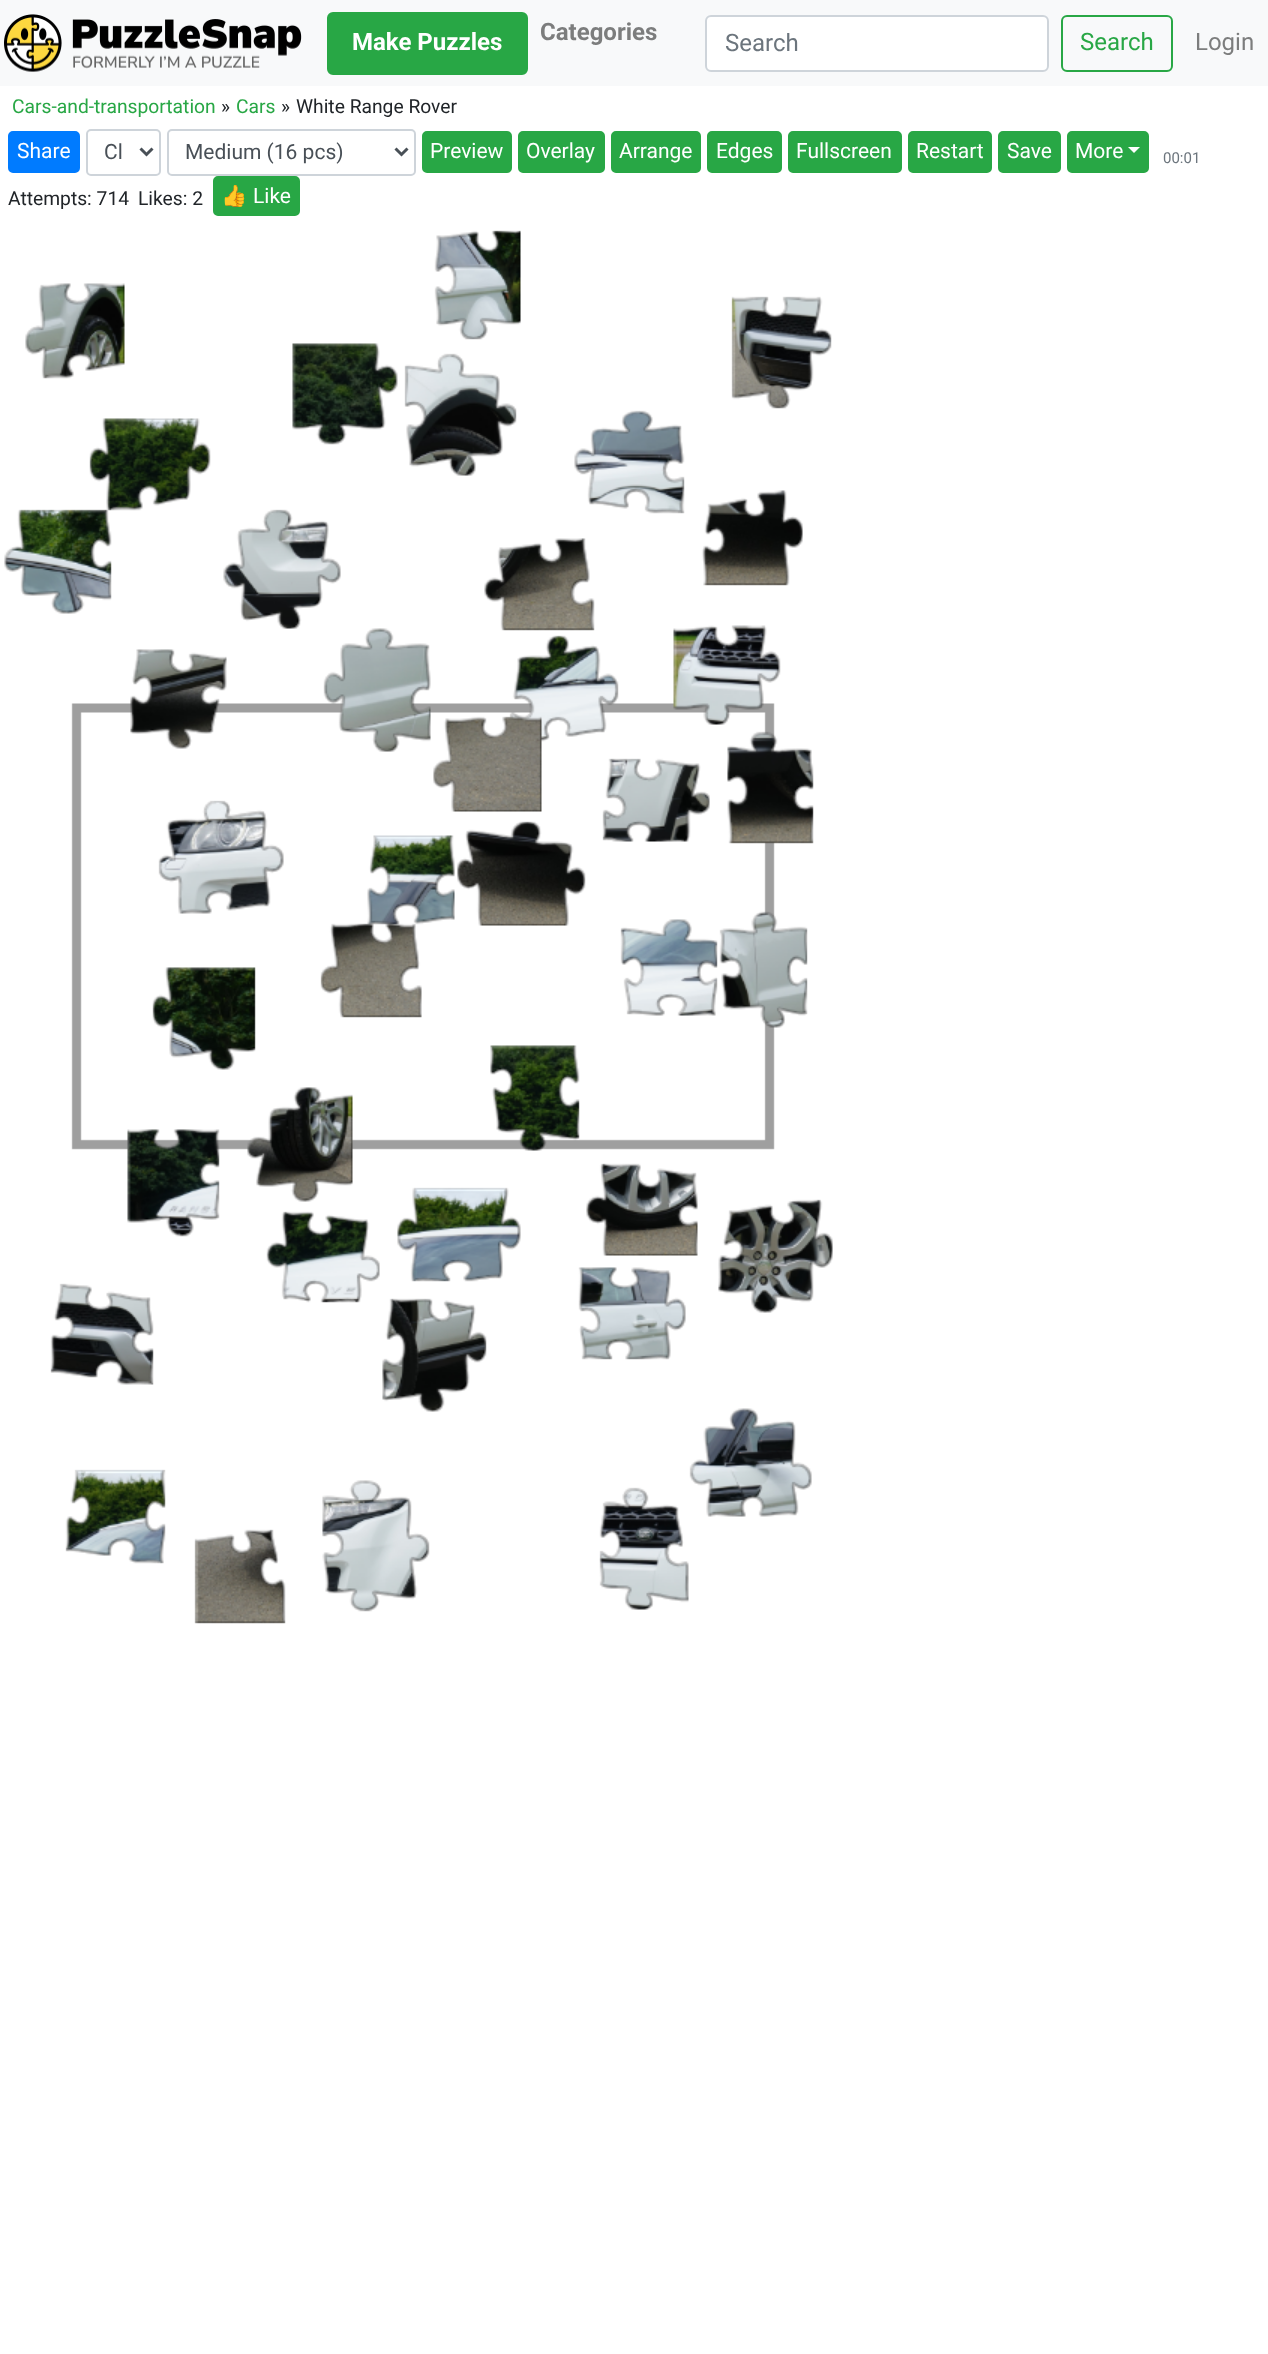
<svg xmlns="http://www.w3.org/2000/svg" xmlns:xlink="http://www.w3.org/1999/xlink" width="1268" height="2354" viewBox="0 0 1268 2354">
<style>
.cls-1{font:bold 24px Roboto;fill:#ffffff}
.cls-2{font:bold 24px Roboto;fill:#7c7d7d}
.cls-3{font:24px Roboto;fill:#6c757d}
.cls-4{font:24px Roboto;fill:#28a745}
.cls-5{font:24px Roboto;fill:#7c7d7d}
.cls-6{font:19.25px Roboto;fill:#28a745}
.cls-7{font:19.25px Roboto;fill:#212529}
.cls-8{font:21px Roboto;fill:#ffffff}
.cls-9{font:21px Roboto;fill:#495057}
.cls-10{font:15px Roboto;fill:#6c757d}
.cls-11{font:21px Noto Color Emoji;fill:#ffffff}
</style>
<rect width="100%" height="100%" fill="#ffffff"/>
<rect fill="#f8f9fa" x="0" y="0" width="1268" height="86"/>
<image xlink:href="image0.png" x="4" y="14" width="298" height="58"/>
<rect fill="#28a745" stroke="#28a745" stroke-width="2" x="328" y="13" width="199" height="61" rx="5"/>
<rect fill="#ffffff" stroke="#ced4da" stroke-width="2" x="706" y="16" width="342" height="55" rx="5"/>
<rect fill="none" stroke="#28a745" stroke-width="2" x="1062" y="16" width="110" height="55" rx="5"/>
<rect fill="#007bff" stroke="#007bff" stroke-width="2" x="9" y="132" width="70" height="40" rx="4"/>
<rect fill="none" stroke="#ced4da" stroke-width="2" x="87" y="130" width="73" height="45" rx="4"/>
<path fill="none" stroke="#495057" stroke-width="3" d="M140.5 148.5L146.5 154.5L152.5 148.5"/>
<rect fill="none" stroke="#ced4da" stroke-width="2" x="168" y="130" width="247" height="45" rx="4"/>
<path fill="none" stroke="#495057" stroke-width="3" d="M395.5 148.5L401.5 154.5L407.5 148.5"/>
<rect fill="#28a745" stroke="#28a745" stroke-width="2" x="423" y="132" width="88" height="40" rx="4"/>
<rect fill="#28a745" stroke="#28a745" stroke-width="2" x="519" y="132" width="85" height="40" rx="4"/>
<rect fill="#28a745" stroke="#28a745" stroke-width="2" x="612" y="132" width="88" height="40" rx="4"/>
<rect fill="#28a745" stroke="#28a745" stroke-width="2" x="708" y="132" width="73" height="40" rx="4"/>
<rect fill="#28a745" stroke="#28a745" stroke-width="2" x="789" y="132" width="112" height="40" rx="4"/>
<rect fill="#28a745" stroke="#28a745" stroke-width="2" x="909" y="132" width="82" height="40" rx="4"/>
<rect fill="#28a745" stroke="#28a745" stroke-width="2" x="999" y="132" width="61" height="40" rx="4"/>
<rect fill="#28a745" stroke="#28a745" stroke-width="2" x="1068" y="132" width="80" height="40" rx="4"/>
<path fill="#ffffff" d="M1128 147H1140L1134 153Z"/>
<rect fill="#28a745" stroke="#28a745" stroke-width="2" x="214" y="177" width="85" height="38" rx="4"/>
<image xlink:href="image1.png" x="4" y="230" width="829" height="1394"/>
<text class="cls-1" x="352" y="50">Make Puzzles</text>
<text class="cls-2" x="540" y="40">Categories</text>
<text class="cls-3" x="725" y="51">Search</text>
<text class="cls-4" x="1080" y="50">Search</text>
<text class="cls-5" x="1195" y="50">Login</text>
<text class="cls-6" x="12" y="113">Cars-and-transportation</text>
<text class="cls-7" x="221" y="113">»</text>
<text class="cls-6" x="236" y="113">Cars</text>
<text class="cls-7" x="281" y="113">»</text>
<text class="cls-7" x="296" y="113">White Range Rover</text>
<text class="cls-8" x="17" y="158">Share</text>
<text class="cls-9" x="104" y="159">Cl</text>
<text class="cls-9" x="185" y="159">Medium (16 pcs)</text>
<text class="cls-8" x="430" y="158">Preview</text>
<text class="cls-8" x="526" y="158">Overlay</text>
<text class="cls-8" x="619" y="158">Arrange</text>
<text class="cls-8" x="716" y="158">Edges</text>
<text class="cls-8" x="796" y="158">Fullscreen</text>
<text class="cls-8" x="916" y="158">Restart</text>
<text class="cls-8" x="1007" y="158">Save</text>
<text class="cls-8" x="1075" y="158">More</text>
<text class="cls-10" x="1163" y="163">00:01</text>
<text class="cls-7" x="8" y="205">Attempts: 714</text>
<text class="cls-7" x="138" y="205">Likes: 2</text>
<text class="cls-11" x="221" y="203">👍</text>
<text class="cls-8" x="253" y="203">Like</text>
</svg>
